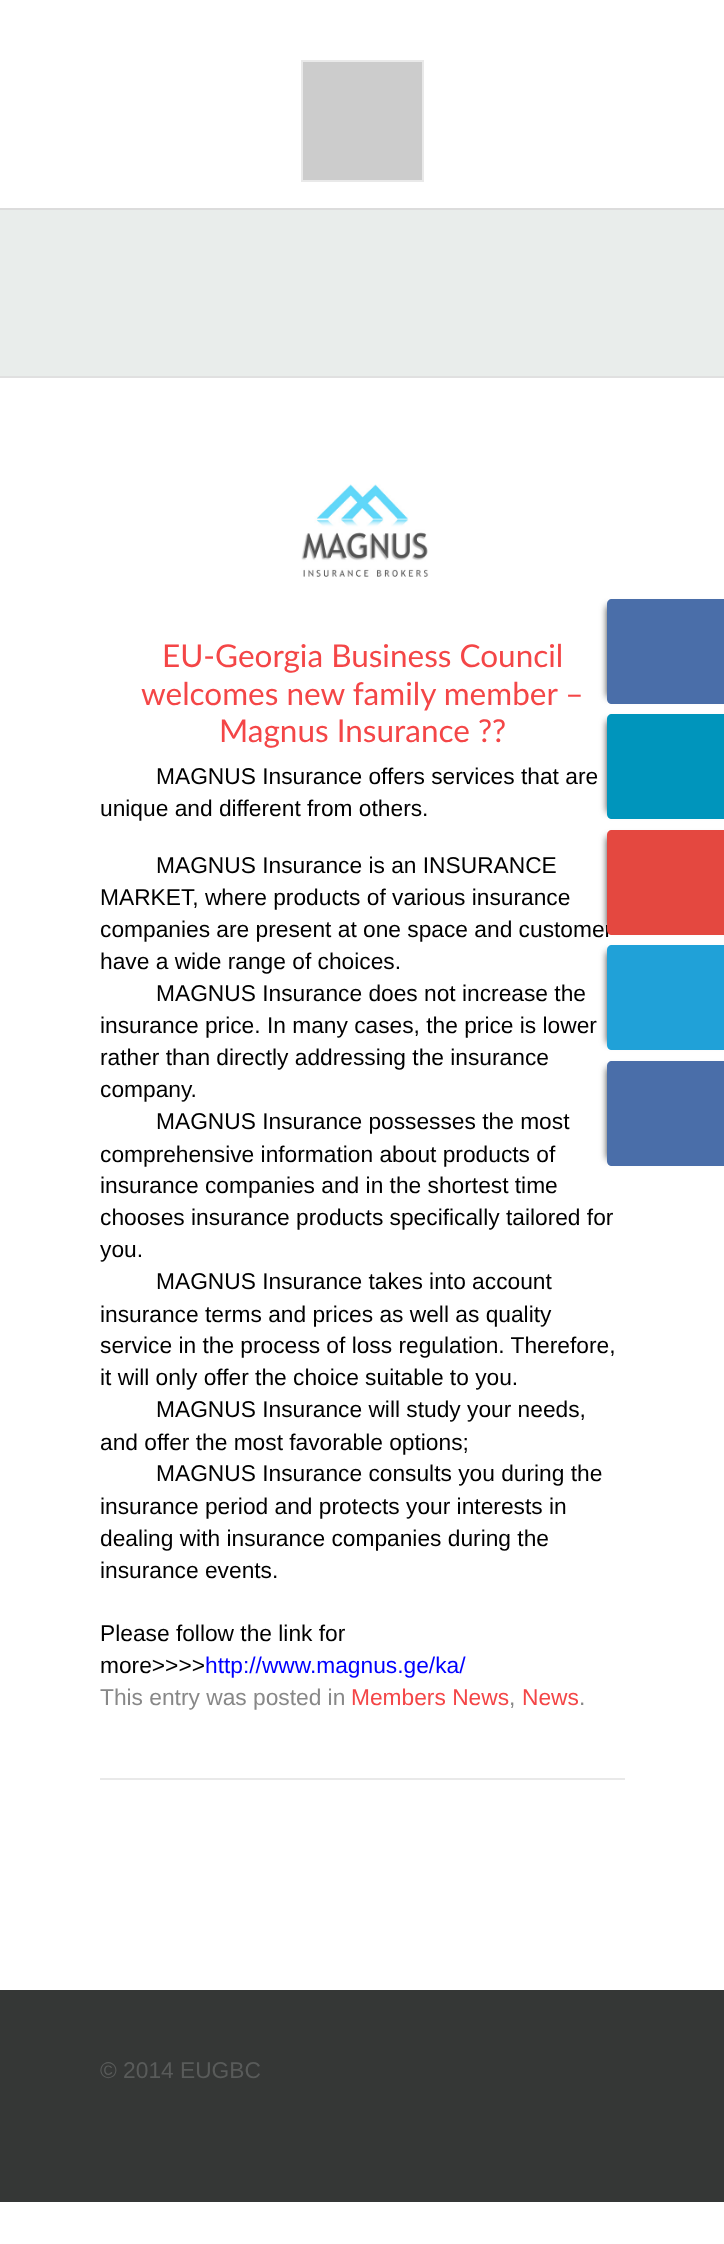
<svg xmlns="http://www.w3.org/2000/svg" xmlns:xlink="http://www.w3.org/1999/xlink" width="724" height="2244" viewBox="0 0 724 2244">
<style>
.cls-1{font:31.5px Lato;fill:#f44647}
.cls-2{font:22.75px Liberation Sans;fill:#000000}
.cls-3{font:22.75px Liberation Sans;fill:#0000ff}
.cls-4{font:22.75px Liberation Sans;fill:#888888}
.cls-5{font:22.75px Liberation Sans;fill:#f44647}
.cls-6{font:22.75px Liberation Sans;fill:#595b5a}
</style>
<rect width="100%" height="100%" fill="#ffffff"/>
<rect fill="#dcdcdc" x="0" y="208" width="724" height="2"/>
<rect fill="#cccccc" stroke="#e9e9e9" stroke-width="2" x="302" y="61" width="121" height="120"/>
<rect fill="#e9edeb" x="0" y="210" width="724" height="166"/>
<rect fill="#e0e0e0" x="0" y="376" width="724" height="2"/>
<image xlink:href="image0.png" x="301" y="484" width="128" height="93"/>
<rect fill="#e9e9e9" x="100" y="1778" width="525" height="2"/>
<rect fill="#444444" filter="blur(3.5px)" x="607" y="606" width="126" height="91"/>
<path fill="#4a6ea9" d="M612 599H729V704H612C609 704 607 702 607 699V604C607 601 609 599 612 599Z"/>
<rect fill="#444444" filter="blur(3.5px)" x="607" y="721" width="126" height="91"/>
<path fill="#0095bc" d="M612 714H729V819H612C609 819 607 817 607 814V719C607 716 609 714 612 714Z"/>
<rect fill="#444444" filter="blur(3.5px)" x="607" y="837" width="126" height="91"/>
<rect fill="#444444" filter="blur(3.5px)" x="607" y="952" width="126" height="91"/>
<path fill="#20a1d8" d="M612 945H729V1050H612C609 1050 607 1048 607 1045V950C607 947 609 945 612 945Z"/>
<rect fill="#444444" filter="blur(3.5px)" x="607" y="1068" width="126" height="91"/>
<path fill="#4a6ea9" d="M612 1061H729V1166H612C609 1166 607 1164 607 1161V1066C607 1063 609 1061 612 1061Z"/>
<rect fill="#353736" x="0" y="1990" width="724" height="212"/>
<text class="cls-1" x="162" y="667">EU-Georgia Business Council</text>
<text class="cls-1" x="141" y="705">welcomes new family member –</text>
<text class="cls-1" x="219" y="742">Magnus Insurance ??</text>
<text class="cls-2" x="156" y="784">MAGNUS Insurance offers services that are</text>
<text class="cls-2" x="100" y="816">unique and different from others.</text>
<text class="cls-2" x="156" y="873">MAGNUS Insurance is an INSURANCE</text>
<text class="cls-2"><tspan x="100" y="905">MARKET, where products of various insurance</tspan><tspan x="100" y="937">companies are present at one space and customer</tspan><tspan x="100" y="969">have a wide range of choices.</tspan></text>
<text class="cls-2" x="156" y="1001">MAGNUS Insurance does not increase the</text>
<text class="cls-2"><tspan x="100" y="1033">insurance price. In many cases, the price is lower</tspan><tspan x="100" y="1065">rather than directly addressing the insurance</tspan><tspan x="100" y="1097">company.</tspan></text>
<text class="cls-2" x="156" y="1129">MAGNUS Insurance possesses the most</text>
<text class="cls-2"><tspan x="100" y="1162">comprehensive information about products of</tspan><tspan x="100" y="1193">insurance companies and in the shortest time</tspan><tspan x="100" y="1225">chooses insurance products specifically tailored for</tspan><tspan x="100" y="1257">you.</tspan></text>
<text class="cls-2" x="156" y="1289">MAGNUS Insurance takes into account</text>
<text class="cls-2"><tspan x="100" y="1322">insurance terms and prices as well as quality</tspan><tspan x="100" y="1353">service in the process of loss regulation. Therefore,</tspan><tspan x="100" y="1385">it will only offer the choice suitable to you.</tspan></text>
<text class="cls-2" x="156" y="1417">MAGNUS Insurance will study your needs,</text>
<text class="cls-2" x="100" y="1450">and offer the most favorable options;</text>
<text class="cls-2" x="156" y="1481">MAGNUS Insurance consults you during the</text>
<text class="cls-2"><tspan x="100" y="1514">insurance period and protects your interests in</tspan><tspan x="100" y="1546">dealing with insurance companies during the</tspan><tspan x="100" y="1578">insurance events.</tspan></text>
<text class="cls-2"><tspan x="100" y="1641">Please follow the link for</tspan><tspan x="100" y="1673">more&gt;&gt;&gt;&gt;</tspan></text>
<text class="cls-3" x="205" y="1673">http://www.magnus.ge/ka/</text>
<text class="cls-4" x="100" y="1705">This entry was posted in</text>
<text class="cls-5" x="351" y="1705">Members News</text>
<text class="cls-4" x="509" y="1705">,</text>
<text class="cls-5" x="522" y="1705">News</text>
<text class="cls-4" x="579" y="1705">.</text>
<path fill="#e44840" d="M612 830H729V935H612C609 935 607 933 607 930V835C607 832 609 830 612 830Z"/>
<text class="cls-6" x="100" y="2078">© 2014 EUGBC</text>
</svg>
